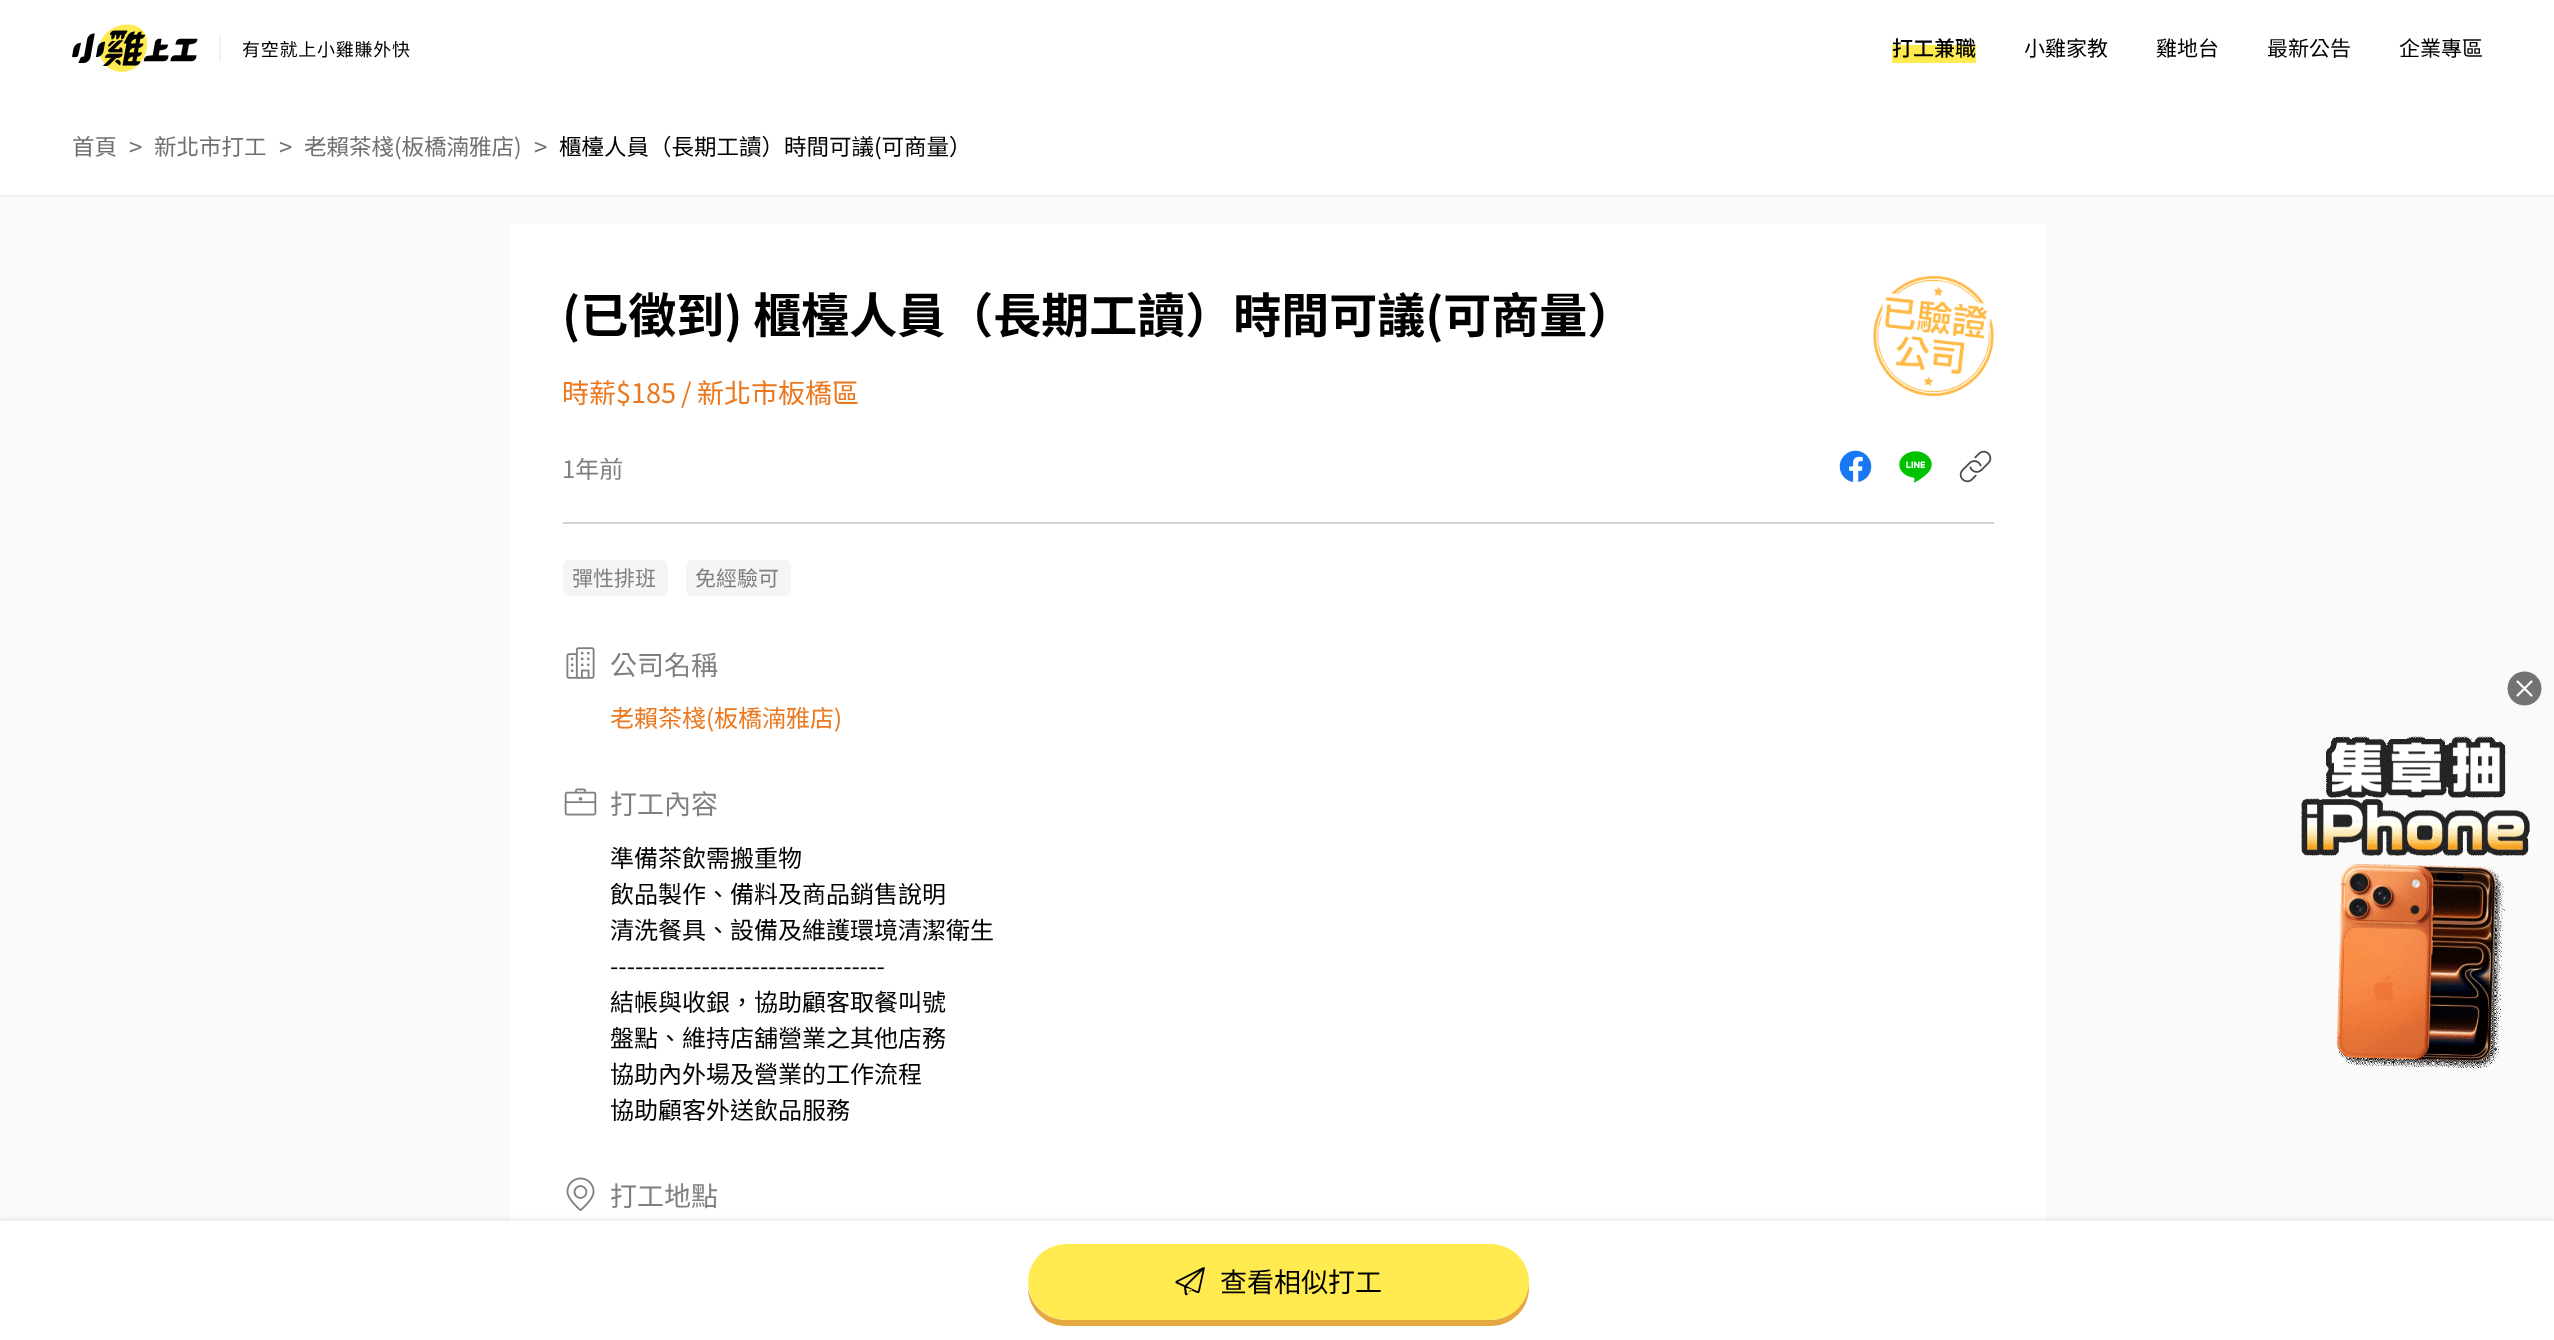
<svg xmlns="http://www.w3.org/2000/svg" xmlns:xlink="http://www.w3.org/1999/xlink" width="2554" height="1340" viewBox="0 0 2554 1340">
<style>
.cls-1{font:18px Noto Sans TC;letter-spacing:0.75px;fill:#000000}
.cls-2{font:500 21px Noto Sans TC;fill:#000000}
.cls-3{font:21px Noto Sans TC;fill:#000000}
.cls-4{font:22.5px Noto Sans TC;fill:#707070}
.cls-5{font:24px Noto Sans TC;fill:#707070}
.cls-6{font:22.5px Noto Sans TC;fill:#000000}
.cls-7{font:bold 48px Noto Sans TC;fill:#000000}
.cls-8{font:27px Noto Sans TC;fill:#eb781e}
.cls-9{font:24px Noto Sans TC;fill:#808080}
.cls-10{font:21px Noto Sans TC;fill:#808080}
.cls-11{font:27px Noto Sans TC;fill:#808080}
.cls-12{font:24px Noto Sans TC;fill:#eb781e}
.cls-13{font:24px Noto Sans TC;fill:#000000}
.cls-14{font:27px Noto Sans TC;fill:#000000}
</style>
<defs>
<clipPath id="clip1"><rect x="2507" y="671" width="36" height="36"/></clipPath>
</defs>
<rect width="100%" height="100%" fill="#ffffff"/>
<image xlink:href="image0.png" x="72" y="24" width="126" height="48"/>
<rect fill="#f2f2f2" x="219" y="35" width="2" height="27"/>
<rect fill="#ffeb50" x="1892" y="45" width="84" height="18"/>
<rect fill="#fafafa" x="0" y="197" width="2554" height="1024"/>
<rect fill="#f2f2f2" x="0" y="195" width="2554" height="2"/>
<rect fill="#ffffff" x="510" y="224" width="1536" height="997"/>
<image xlink:href="image1.png" x="1873" y="276" width="121" height="120"/>
<image xlink:href="image2.png" x="1839" y="450" width="33" height="32"/>
<image xlink:href="image3.png" x="1899" y="451" width="33" height="32"/>
<image xlink:href="image4.png" x="1959" y="450" width="33" height="33"/>
<rect fill="#d2d2d2" x="563" y="522" width="1431" height="2"/>
<rect fill="#f5f5f5" x="563" y="560" width="105" height="36" rx="6"/>
<rect fill="#f5f5f5" x="686" y="560" width="105" height="36" rx="6"/>
<image xlink:href="image5.png" x="566" y="647" width="29" height="32"/>
<image xlink:href="image6.png" x="564" y="788" width="33" height="28"/>
<image xlink:href="image7.png" x="566" y="1177" width="29" height="34"/>
<circle fill="#737373" cx="2524.5" cy="688.5" r="17.5"/>
<g clip-path="url(#clip1)">
<circle fill="none" stroke="#ffffff" cx="2524.5" cy="688.5" r="17.5"/>
</g>
<path fill="none" stroke="#ffffff" stroke-width="2.2" stroke-linecap="round" stroke-linejoin="round" d="M2531.5 681.5L2517.5 695.5M2531.5 695.5L2517.5 681.5"/>
<image xlink:href="image8.png" x="2301" y="736" width="229" height="333"/>
<rect fill="#000000" fill-opacity="0.05" filter="blur(2px)" x="0" y="1218" width="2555" height="120"/>
<rect fill="#ffffff" x="0" y="1221" width="2554" height="119"/>
<path fill="#e5a73f" d="M1028 1288C1028 1309 1045 1326 1066 1326H1491C1512 1326 1529 1309 1529 1288L1528 1282C1528 1303 1511 1320 1490 1320H1066C1047 1320 1031 1306 1028 1288Z"/>
<rect fill="#ffeb50" x="1028" y="1244" width="501" height="76" rx="38"/>
<image xlink:href="image9.png" x="1175" y="1267" width="30" height="29"/>
<text class="cls-1" x="242" y="56">有空就上小雞賺外快</text>
<text class="cls-2" x="1892" y="56">打工兼職</text>
<text class="cls-3" x="2024" y="56">小雞家教</text>
<text class="cls-3" x="2156" y="56">雞地台</text>
<text class="cls-3" x="2267" y="56">最新公告</text>
<text class="cls-3" x="2399" y="56">企業專區</text>
<text class="cls-4" x="72" y="155">首頁</text>
<text class="cls-5" x="129" y="156">&gt;</text>
<text class="cls-4" x="154" y="155">新北市打工</text>
<text class="cls-5" x="279" y="156">&gt;</text>
<text class="cls-4" x="304" y="155">老賴茶棧(板橋湳雅店)</text>
<text class="cls-5" x="534" y="156">&gt;</text>
<text class="cls-6" x="559" y="155">櫃檯人員（長期工讀）時間可議(可商量）</text>
<text class="cls-7" x="562" y="333">(已徵到) 櫃檯人員（長期工讀）時間可議(可商量）</text>
<text class="cls-8" x="562" y="403">時薪$185</text>
<text class="cls-8" x="681" y="403">/</text>
<text class="cls-8" x="697" y="403">新北市板橋區</text>
<text class="cls-9" x="562" y="478">1年前</text>
<text class="cls-10" x="572" y="586">彈性排班</text>
<text class="cls-10" x="695" y="586">免經驗可</text>
<text class="cls-11" x="610" y="675">公司名稱</text>
<text class="cls-12" x="610" y="727">老賴茶棧(板橋湳雅店)</text>
<text class="cls-11" x="610" y="814">打工內容</text>
<text class="cls-13"><tspan x="610" y="867">準備茶飲需搬重物</tspan><tspan x="610" y="903">飲品製作、備料及商品銷售說明</tspan><tspan x="610" y="939">清洗餐具、設備及維護環境清潔衛生</tspan><tspan x="610" y="975">---------------------------------</tspan><tspan x="610" y="1011">結帳與收銀，協助顧客取餐叫號</tspan><tspan x="610" y="1047">盤點、維持店舖營業之其他店務</tspan><tspan x="610" y="1083">協助內外場及營業的工作流程</tspan><tspan x="610" y="1119">協助顧客外送飲品服務</tspan></text>
<text class="cls-11" x="610" y="1206">打工地點</text>
<text class="cls-14" x="1220" y="1292">查看相似打工</text>
</svg>
